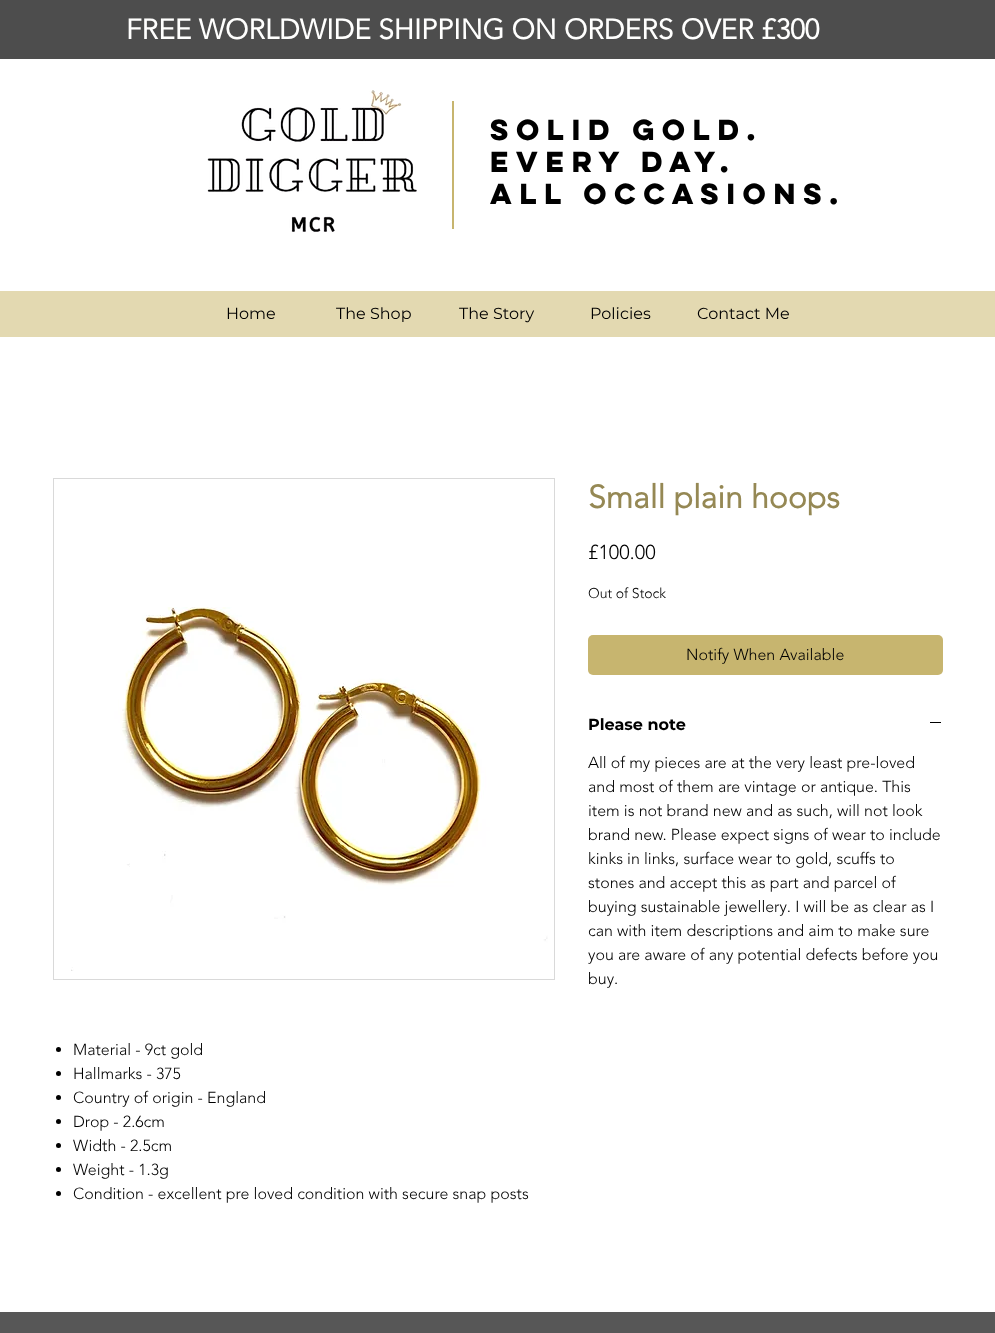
<svg xmlns="http://www.w3.org/2000/svg" xmlns:xlink="http://www.w3.org/1999/xlink" width="995" height="1333" viewBox="0 0 995 1333">
<style>
.cls-1{font:bold 28px 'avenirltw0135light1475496';fill:#fffffe}
.cls-2{font:bold 26px 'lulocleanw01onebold';letter-spacing:2px;fill:#000000}
.cls-3{font:16px Montserrat;fill:#000000}
.cls-4{font:bold 32px 'avenirltw0135light1475496';fill:#958854}
.cls-5{font:300 20px 'avenirltw0135light1475496';fill:#000000}
.cls-6{font:300 14px 'avenirltw0135light1475496';fill:#000000}
.cls-7{font:300 16px 'avenirltw0135light1475496';fill:#000000}
.cls-8{font:bold 16px Montserrat;fill:#000000}
</style>
<rect width="100%" height="100%" fill="#ffffff"/>
<rect fill="#4d4d4d" x="0" y="0" width="995" height="59"/>
<image xlink:href="image0.png" x="207" y="90" width="210" height="142"/>
<rect fill="#c7b56f" x="452" y="101" width="2" height="128"/>
<rect fill="#e3d9b1" x="0" y="291" width="995" height="46"/>
<rect fill="#c7b56f" x="588" y="635" width="355" height="40" rx="5"/>
<rect fill="#000000" x="930" y="722" width="11" height="1"/>
<rect fill="none" stroke="#d9d9d9" x="53.5" y="478.5" width="501" height="501"/>
<image xlink:href="image1.png" x="71" y="607" width="477" height="364"/>
<circle fill="#000000" cx="58.5" cy="1049.5" r="2.5"/>
<circle fill="#000000" cx="58.5" cy="1073.5" r="2.5"/>
<circle fill="#000000" cx="58.5" cy="1097.5" r="2.5"/>
<circle fill="#000000" cx="58.5" cy="1121.5" r="2.5"/>
<circle fill="#000000" cx="58.5" cy="1145.5" r="2.5"/>
<circle fill="#000000" cx="58.5" cy="1169.5" r="2.5"/>
<circle fill="#000000" cx="58.5" cy="1193.5" r="2.5"/>
<rect fill="#575757" x="0" y="1312" width="995" height="21"/>
<text class="cls-1" x="126" y="39">FREE WORLDWIDE SHIPPING ON ORDERS OVER £300</text>
<text class="cls-2"><tspan x="490" y="140">SOLID GOLD.</tspan><tspan x="490" y="172">EVERY DAY.</tspan><tspan x="490" y="204">ALL OCCASIONS.</tspan></text>
<text class="cls-3" x="226" y="319">Home</text>
<text class="cls-3" x="336" y="319">The Shop</text>
<text class="cls-3" x="459" y="319">The Story</text>
<text class="cls-3" x="590" y="319">Policies</text>
<text class="cls-3" x="697" y="319">Contact Me</text>
<text class="cls-4" x="588" y="508">Small plain hoops</text>
<text class="cls-5" x="588" y="559">£100.00</text>
<text class="cls-6" x="588" y="598">Out of Stock</text>
<text class="cls-7" x="686" y="660">Notify When Available</text>
<text class="cls-8" x="588" y="730">Please note</text>
<text class="cls-7"><tspan x="588" y="768">All of my pieces are at the very least pre-loved</tspan><tspan x="588" y="792">and most of them are vintage or antique. This</tspan><tspan x="588" y="816">item is not brand new and as such, will not look</tspan><tspan x="588" y="840">brand new. Please expect signs of wear to include</tspan><tspan x="588" y="864">kinks in links, surface wear to gold, scuffs to</tspan><tspan x="588" y="888">stones and accept this as part and parcel of</tspan><tspan x="588" y="912">buying sustainable jewellery. I will be as clear as I</tspan><tspan x="588" y="936">can with item descriptions and aim to make sure</tspan><tspan x="588" y="960">you are aware of any potential defects before you</tspan><tspan x="588" y="984">buy.</tspan></text>
<text class="cls-7"><tspan x="73" y="1055">Material - 9ct gold</tspan><tspan x="73" y="1079">Hallmarks - 375</tspan><tspan x="73" y="1103">Country of origin - England</tspan><tspan x="73" y="1127">Drop - 2.6cm</tspan><tspan x="73" y="1151">Width - 2.5cm</tspan><tspan x="73" y="1175">Weight - 1.3g</tspan><tspan x="73" y="1199">Condition - excellent pre loved condition with secure snap posts</tspan></text>
</svg>
